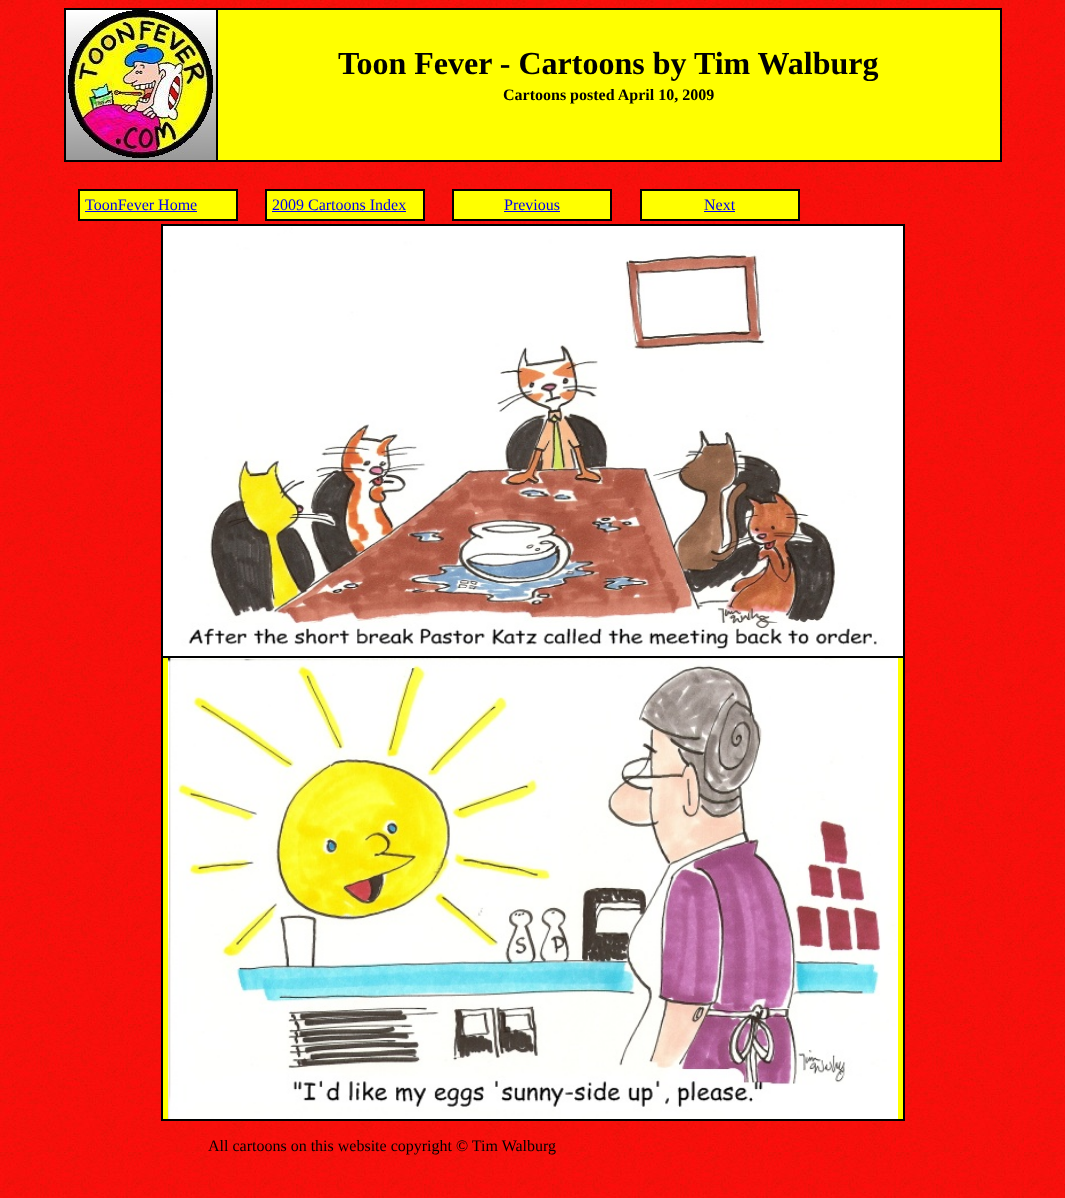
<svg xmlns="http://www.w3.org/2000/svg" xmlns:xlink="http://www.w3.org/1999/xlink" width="1065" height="1198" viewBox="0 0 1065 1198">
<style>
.cls-1{font:bold 32px Liberation Serif;fill:#000000}
.cls-2{font:bold 16px Liberation Serif;fill:#000000}
.cls-3{font:16px Liberation Serif;fill:#0000ee}
.cls-4{font:16px Liberation Serif;fill:#000000}
</style>
<rect width="100%" height="100%" fill="#ffffff"/>
<image xlink:href="image0.png" x="0" y="0" width="1065" height="1198"/>
<rect fill="#ffff00" x="218" y="10" width="782" height="150"/>
<rect fill="none" stroke="#000000" x="64.5" y="8.5" width="937" height="153"/>
<rect fill="none" stroke="#000000" x="65.5" y="9.5" width="151" height="151"/>
<image xlink:href="image1.png" x="66" y="10" width="150" height="150"/>
<rect fill="none" stroke="#000000" x="217.5" y="9.5" width="783" height="151"/>
<rect fill="#ffff00" x="80" y="191" width="156" height="28"/>
<rect fill="none" stroke="#000000" x="78.5" y="189.5" width="159" height="31"/>
<rect fill="none" stroke="#000000" x="79.5" y="190.5" width="157" height="29"/>
<rect fill="#0000ee" x="85" y="211" width="112" height="1"/>
<rect fill="#ffff00" x="267" y="191" width="156" height="28"/>
<rect fill="none" stroke="#000000" x="265.5" y="189.5" width="159" height="31"/>
<rect fill="none" stroke="#000000" x="266.5" y="190.5" width="157" height="29"/>
<rect fill="#0000ee" x="272" y="211" width="134" height="1"/>
<rect fill="#ffff00" x="454" y="191" width="156" height="28"/>
<rect fill="none" stroke="#000000" x="452.5" y="189.5" width="159" height="31"/>
<rect fill="none" stroke="#000000" x="453.5" y="190.5" width="157" height="29"/>
<rect fill="#0000ee" x="504" y="211" width="56" height="1"/>
<rect fill="#ffff00" x="642" y="191" width="156" height="28"/>
<rect fill="none" stroke="#000000" x="640.5" y="189.5" width="159" height="31"/>
<rect fill="none" stroke="#000000" x="641.5" y="190.5" width="157" height="29"/>
<rect fill="#0000ee" x="704" y="211" width="31" height="1"/>
<rect fill="#ffff00" x="163" y="658" width="740" height="461"/>
<rect fill="none" stroke="#000000" x="161.5" y="224.5" width="743" height="896"/>
<rect fill="none" stroke="#000000" x="162.5" y="225.5" width="741" height="431"/>
<image xlink:href="image2.png" x="163" y="226" width="740" height="430"/>
<rect fill="none" stroke="#000000" x="162.5" y="657.5" width="741" height="462"/>
<image xlink:href="image3.png" x="168" y="658" width="730" height="461"/>
<text class="cls-1" x="338" y="74">Toon Fever - Cartoons by Tim Walburg</text>
<text class="cls-2" x="503" y="100">Cartoons posted April 10, 2009</text>
<text class="cls-3" x="85" y="210">ToonFever Home</text>
<text class="cls-3" x="272" y="210">2009 Cartoons Index</text>
<text class="cls-3" x="504" y="210">Previous</text>
<text class="cls-3" x="704" y="210">Next</text>
<text class="cls-4" x="208" y="1151">All cartoons on this website copyright © Tim Walburg</text>
</svg>
